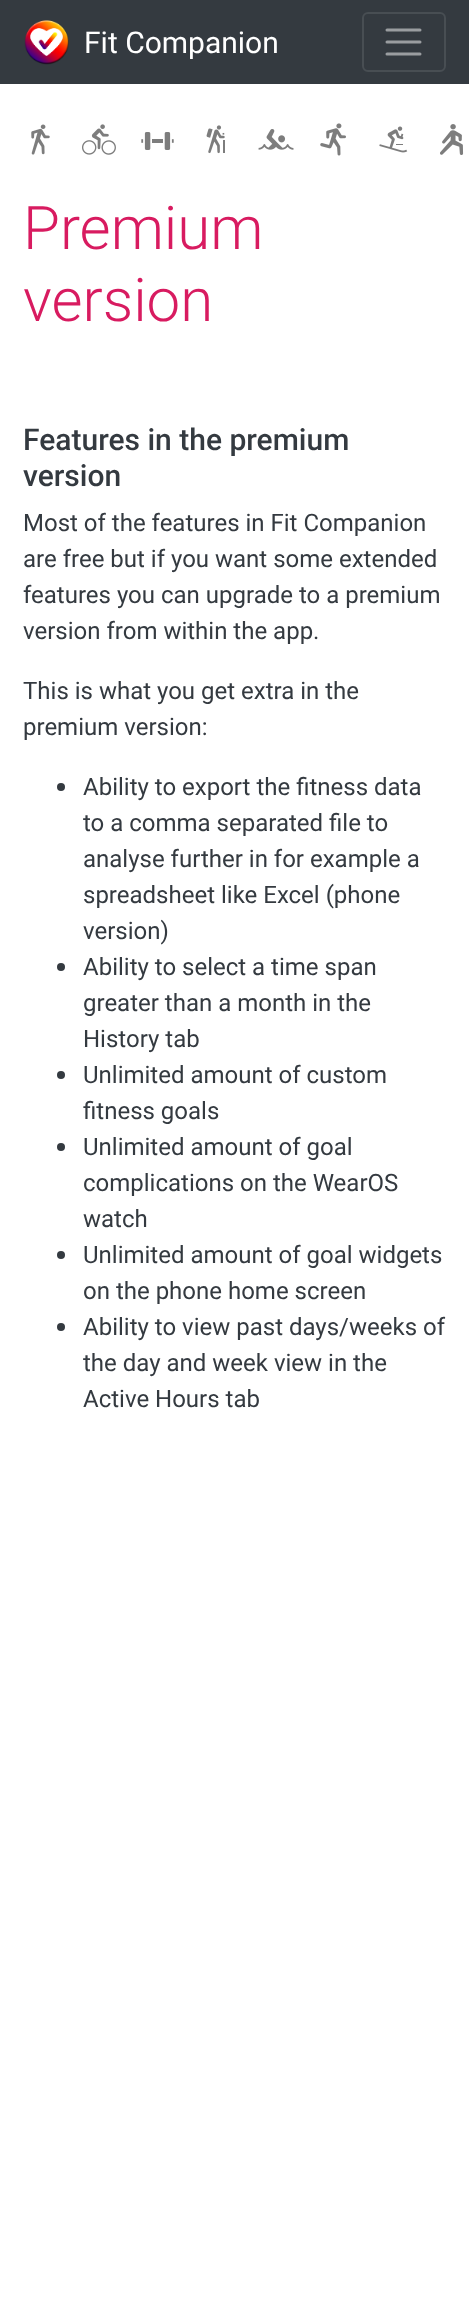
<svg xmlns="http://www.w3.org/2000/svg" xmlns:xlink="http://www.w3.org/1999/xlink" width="469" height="2313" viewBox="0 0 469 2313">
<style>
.cls-1{font:30px Roboto;fill:#ffffff}
.cls-2{font:300 60px Roboto;fill:#d81b60}
.cls-3{font:500 30px Roboto;fill:#343a40}
.cls-4{font:24px Roboto;fill:#343a40}
</style>
<rect width="100%" height="100%" fill="#ffffff"/>
<rect fill="#343a40" x="0" y="0" width="469" height="84"/>
<image xlink:href="image0.png" x="24" y="20" width="45" height="45"/>
<rect fill="none" stroke="#484e53" stroke-width="2" x="363" y="13" width="82" height="58" rx="5"/>
<path fill="none" stroke="#9a9da0" stroke-width="3" stroke-linecap="round" d="M387 30H420M387 42H420M387 54H420"/>
<image xlink:href="image1.png" x="31" y="124" width="19" height="31"/>
<image xlink:href="image2.png" x="82" y="124" width="34" height="31"/>
<image xlink:href="image3.png" x="141" y="132" width="33" height="18"/>
<image xlink:href="image4.png" x="206" y="125" width="19" height="29"/>
<image xlink:href="image5.png" x="258" y="129" width="36" height="21"/>
<image xlink:href="image6.png" x="320" y="123" width="26" height="33"/>
<image xlink:href="image7.png" x="379" y="126" width="29" height="27"/>
<image xlink:href="image8.png" x="440" y="124" width="24" height="31"/>
<circle fill="#343a40" cx="61" cy="787" r="4"/>
<circle fill="#343a40" cx="61" cy="967" r="4"/>
<circle fill="#343a40" cx="61" cy="1075" r="4"/>
<circle fill="#343a40" cx="61" cy="1147" r="4"/>
<circle fill="#343a40" cx="61" cy="1255" r="4"/>
<circle fill="#343a40" cx="61" cy="1327" r="4"/>
<text class="cls-1" x="84" y="53">Fit Companion</text>
<text class="cls-2"><tspan x="23" y="249">Premium</tspan><tspan x="23" y="321">version</tspan></text>
<text class="cls-3"><tspan x="23" y="450">Features in the premium</tspan><tspan x="23" y="486">version</tspan></text>
<text class="cls-4"><tspan x="23" y="531">Most of the features in Fit Companion</tspan><tspan x="23" y="567">are free but if you want some extended</tspan><tspan x="23" y="603">features you can upgrade to a premium</tspan><tspan x="23" y="639">version from within the app.</tspan></text>
<text class="cls-4"><tspan x="23" y="699">This is what you get extra in the</tspan><tspan x="23" y="735">premium version:</tspan></text>
<text class="cls-4"><tspan x="83" y="795">Ability to export the fitness data</tspan><tspan x="83" y="831">to a comma separated file to</tspan><tspan x="83" y="867">analyse further in for example a</tspan><tspan x="83" y="903">spreadsheet like Excel (phone</tspan><tspan x="83" y="939">version)</tspan><tspan x="83" y="975">Ability to select a time span</tspan><tspan x="83" y="1011">greater than a month in the</tspan><tspan x="83" y="1047">History tab</tspan><tspan x="83" y="1083">Unlimited amount of custom</tspan><tspan x="83" y="1119">fitness goals</tspan><tspan x="83" y="1155">Unlimited amount of goal</tspan><tspan x="83" y="1191">complications on the WearOS</tspan><tspan x="83" y="1227">watch</tspan><tspan x="83" y="1263">Unlimited amount of goal widgets</tspan><tspan x="83" y="1299">on the phone home screen</tspan><tspan x="83" y="1335">Ability to view past days/weeks of</tspan><tspan x="83" y="1371">the day and week view in the</tspan><tspan x="83" y="1407">Active Hours tab</tspan></text>
</svg>
